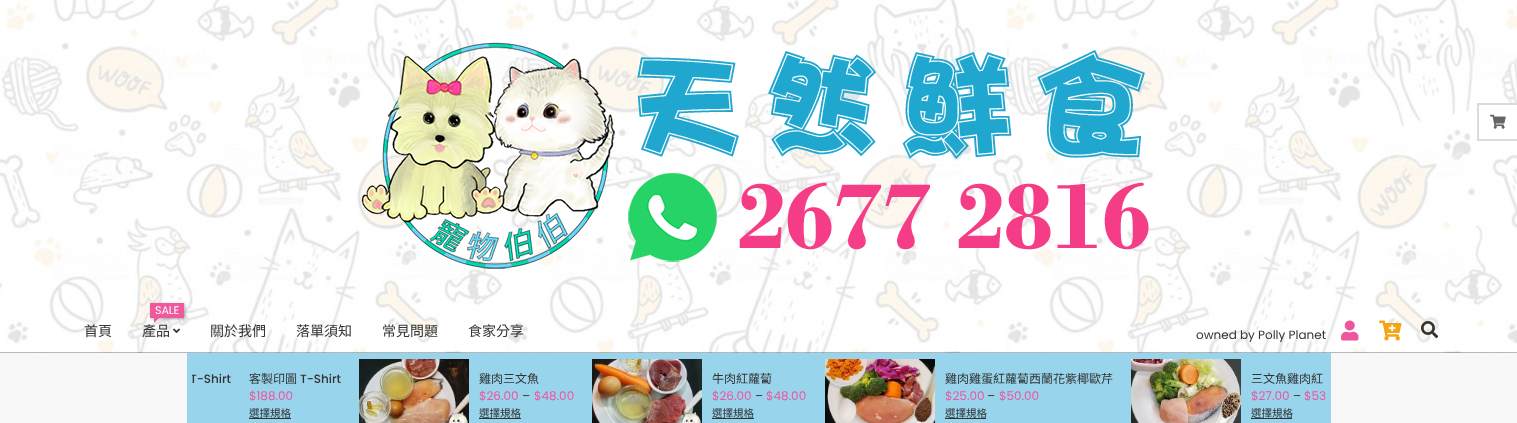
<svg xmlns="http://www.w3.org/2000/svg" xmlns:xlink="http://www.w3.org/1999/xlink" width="1517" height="423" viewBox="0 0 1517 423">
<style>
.cls-1{font:14px Noto Sans CJK TC;fill:#333333}
.cls-2{font:11px Poppins;fill:#ffffff}
.cls-3{font:12px Poppins;fill:#333333}
.cls-4{font:500 12px Poppins;fill:#333333}
.cls-5{font:12px Noto Sans CJK TC;fill:#333333}
.cls-6{font:12px Poppins;fill:#ee559d}
.cls-7{font:10.5px Noto Sans CJK TC;fill:#333333}
</style>
<defs>
<clipPath id="clip1"><rect x="192" y="359" width="1134" height="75"/></clipPath>
</defs>
<rect width="100%" height="100%" fill="#ffffff"/>
<image xlink:href="image0.png" x="0" y="0" width="1517" height="353"/>
<rect fill="#ffffff" x="1486" y="103" width="31" height="27"/>
<path fill="#dbdbdb" d="M1477 103H1517V105H1479ZM1517 141H1477L1479 139H1517Z"/>
<path fill="#000000" fill-opacity="0.14" d="M1477 141V103L1479 105V139Z"/>
<image xlink:href="image1.png" x="1490" y="114" width="16" height="15"/>
<rect fill="#000000" fill-opacity="0.28" x="0" y="352" width="1517" height="1"/>
<image xlink:href="image2.png" x="361" y="42" width="788" height="227"/>
<rect fill="#000000" fill-opacity="0.33" filter="blur(1.5px)" x="151" y="304" width="34" height="15"/>
<rect fill="#ee599d" x="150" y="303" width="34" height="15"/>
<path fill="#ee599d" d="M154 318H159L154 323Z"/>
<image xlink:href="image3.png" x="173" y="328" width="7" height="5"/>
<image xlink:href="image4.png" x="1341" y="320" width="18" height="21"/>
<image xlink:href="image5.png" x="1379" y="320" width="23" height="21"/>
<image xlink:href="image6.png" x="1421" y="321" width="18" height="18"/>
<rect fill="#f8f8f8" x="0" y="353" width="1517" height="70"/>
<rect fill="#98d5ed" x="187" y="353" width="1144" height="70"/>
<rect fill="#333333" x="249" y="418" width="42" height="1"/>
<image xlink:href="image7.png" x="359" y="359" width="110" height="64"/>
<rect fill="#333333" x="479" y="418" width="42" height="1"/>
<image xlink:href="image8.png" x="592" y="359" width="110" height="64"/>
<rect fill="#333333" x="712" y="418" width="42" height="1"/>
<image xlink:href="image9.png" x="825" y="359" width="110" height="64"/>
<rect fill="#333333" x="945" y="418" width="41" height="1"/>
<image xlink:href="image10.png" x="1131" y="359" width="110" height="64"/>
<rect fill="#333333" x="1251" y="418" width="41" height="1"/>
<text class="cls-1" x="84" y="336">首頁</text>
<text class="cls-2" x="155" y="314">SALE</text>
<text class="cls-1" x="142" y="336">產品</text>
<text class="cls-1" x="210" y="336">關於我們</text>
<text class="cls-1" x="296" y="336">落單須知</text>
<text class="cls-1" x="382" y="336">常見問題</text>
<text class="cls-1" x="468" y="336">食家分享</text>
<text class="cls-3" x="1196" y="339">owned by Polly Planet</text>
<g clip-path="url(#clip1)">
<text class="cls-4" x="190" y="383">T-Shirt</text>
</g>
<text class="cls-5" x="249" y="383">客製印圖</text>
<text class="cls-4" x="300" y="383">T-Shirt</text>
<text class="cls-6" x="249" y="400">$188.00</text>
<text class="cls-7" x="249" y="417">選擇規格</text>
<text class="cls-5" x="479" y="383">雞肉三文魚</text>
<text class="cls-6" x="479" y="400">$26.00</text>
<text class="cls-3" x="522" y="400">–</text>
<text class="cls-6" x="534" y="400">$48.00</text>
<text class="cls-7" x="479" y="417">選擇規格</text>
<text class="cls-5" x="712" y="383">牛肉紅蘿蔔</text>
<text class="cls-6" x="712" y="400">$26.00</text>
<text class="cls-3" x="755" y="400">–</text>
<text class="cls-6" x="766" y="400">$48.00</text>
<text class="cls-7" x="712" y="417">選擇規格</text>
<text class="cls-5" x="945" y="383">雞肉雞蛋紅蘿蔔西蘭花紫椰歐芹</text>
<text class="cls-6" x="945" y="400">$25.00</text>
<text class="cls-3" x="987" y="400">–</text>
<text class="cls-6" x="999" y="400">$50.00</text>
<text class="cls-7" x="945" y="417">選擇規格</text>
<text class="cls-5" x="1251" y="383">三文魚雞肉紅</text>
<text class="cls-6" x="1251" y="400">$27.00</text>
<text class="cls-3" x="1293" y="400">–</text>
<text class="cls-6" x="1304" y="400">$53</text>
<text class="cls-7" x="1251" y="417">選擇規格</text>
</svg>
